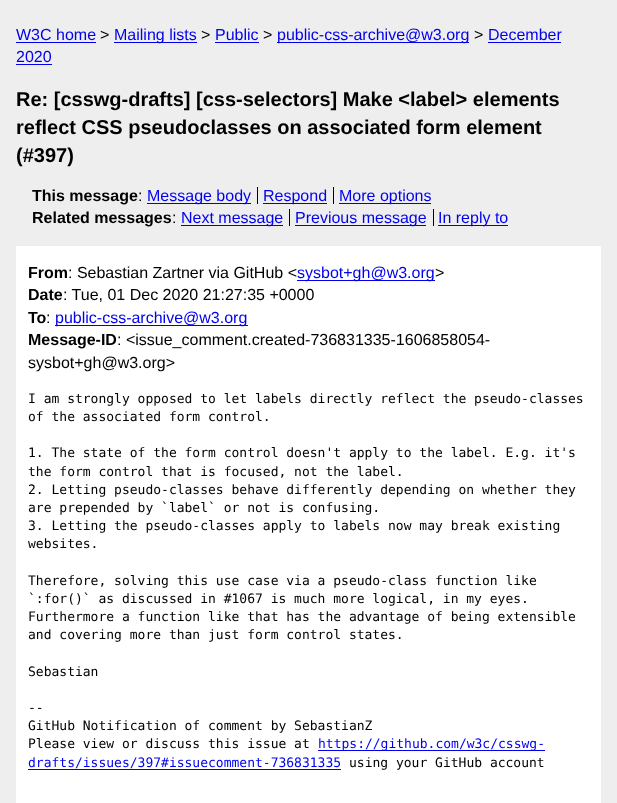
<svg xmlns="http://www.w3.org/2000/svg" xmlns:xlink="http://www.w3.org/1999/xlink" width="617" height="803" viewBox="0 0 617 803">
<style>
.cls-1{font:16px Liberation Sans;fill:#0000ee}
.cls-2{font:16px Liberation Sans;fill:#000000}
.cls-3{font:bold 20px Liberation Sans;fill:#000000}
.cls-4{font:bold 16px Liberation Sans;fill:#000000}
.cls-5{font:13px DejaVu Sans Mono;fill:#000000}
.cls-6{font:13px DejaVu Sans Mono;fill:#0000ee}
</style>
<rect width="100%" height="100%" fill="#eeeeee"/>
<rect fill="#0000ee" x="16" y="42" width="80" height="1"/>
<rect fill="#0000ee" x="114" y="42" width="83" height="1"/>
<rect fill="#0000ee" x="215" y="42" width="44" height="1"/>
<rect fill="#0000ee" x="277" y="42" width="192" height="1"/>
<rect fill="#0000ee" x="488" y="42" width="73" height="1"/>
<rect fill="#0000ee" x="16" y="64" width="36" height="1"/>
<rect fill="#0000ee" x="147" y="203" width="104" height="1"/>
<rect fill="#000000" x="257" y="187" width="1" height="17"/>
<rect fill="#0000ee" x="263" y="203" width="64" height="1"/>
<rect fill="#000000" x="333" y="187" width="1" height="17"/>
<rect fill="#0000ee" x="339" y="203" width="92" height="1"/>
<rect fill="#0000ee" x="181" y="225" width="102" height="1"/>
<rect fill="#000000" x="289" y="209" width="1" height="17"/>
<rect fill="#0000ee" x="295" y="225" width="131" height="1"/>
<rect fill="#000000" x="433" y="209" width="1" height="17"/>
<rect fill="#0000ee" x="438" y="225" width="70" height="1"/>
<rect fill="#ffffff" x="16" y="246" width="585" height="557"/>
<rect fill="#0000ee" x="297" y="280" width="138" height="1"/>
<rect fill="#0000ee" x="55" y="325" width="193" height="1"/>
<rect fill="#0000ee" x="318" y="750" width="227" height="1"/>
<rect fill="#0000ee" x="28" y="769" width="313" height="1"/>
<text class="cls-1" x="16" y="40">W3C home</text>
<text class="cls-2" x="100" y="40">&gt;</text>
<text class="cls-1" x="114" y="40">Mailing lists</text>
<text class="cls-2" x="201" y="40">&gt;</text>
<text class="cls-1" x="215" y="40">Public</text>
<text class="cls-2" x="263" y="40">&gt;</text>
<text class="cls-1" x="277" y="40">public-css-archive@w3.org</text>
<text class="cls-2" x="474" y="40">&gt;</text>
<text class="cls-1" x="488" y="40">December</text>
<text class="cls-1" x="16" y="62">2020</text>
<text class="cls-3"><tspan x="16" y="106">Re: [csswg-drafts] [css-selectors] Make &lt;label&gt; elements</tspan><tspan x="16" y="134">reflect CSS pseudoclasses on associated form element</tspan><tspan x="16" y="162">(#397)</tspan></text>
<text class="cls-4" x="32" y="201">This message</text>
<text class="cls-2" x="138" y="201">:</text>
<text class="cls-1" x="147" y="201">Message body</text>
<text class="cls-1" x="263" y="201">Respond</text>
<text class="cls-1" x="339" y="201">More options</text>
<text class="cls-4" x="32" y="223">Related messages</text>
<text class="cls-2" x="172" y="223">:</text>
<text class="cls-1" x="181" y="223">Next message</text>
<text class="cls-1" x="295" y="223">Previous message</text>
<text class="cls-1" x="438" y="223">In reply to</text>
<text class="cls-4" x="28" y="278">From</text>
<text class="cls-2" x="68" y="278">: Sebastian Zartner via GitHub &lt;</text>
<text class="cls-1" x="297" y="278">sysbot+gh@w3.org</text>
<text class="cls-2" x="435" y="278">&gt;</text>
<text class="cls-4" x="28" y="300">Date</text>
<text class="cls-2" x="63" y="300">: Tue, 01 Dec 2020 21:27:35 +0000</text>
<text class="cls-4" x="28" y="323">To</text>
<text class="cls-2" x="46" y="323">:</text>
<text class="cls-1" x="55" y="323">public-css-archive@w3.org</text>
<text class="cls-4" x="28" y="345">Message-ID</text>
<text class="cls-2" x="117" y="345">: &lt;issue_comment.created-736831335-1606858054-</text>
<text class="cls-2" x="28" y="368">sysbot+gh@w3.org&gt;</text>
<text class="cls-5"><tspan x="28" y="403">I am strongly opposed to let labels directly reflect the pseudo-classes</tspan><tspan x="28" y="421">of the associated form control.</tspan></text>
<text class="cls-5"><tspan x="28" y="457">1. The state of the form control doesn't apply to the label. E.g. it's</tspan><tspan x="28" y="476">the form control that is focused, not the label.</tspan><tspan x="28" y="494">2. Letting pseudo-classes behave differently depending on whether they</tspan><tspan x="28" y="512">are prepended by `label` or not is confusing.</tspan><tspan x="28" y="530">3. Letting the pseudo-classes apply to labels now may break existing</tspan><tspan x="28" y="548">websites.</tspan></text>
<text class="cls-5"><tspan x="28" y="585">Therefore, solving this use case via a pseudo-class function like</tspan><tspan x="28" y="603">`:for()` as discussed in #1067 is much more logical, in my eyes.</tspan><tspan x="28" y="621">Furthermore a function like that has the advantage of being extensible</tspan><tspan x="28" y="639">and covering more than just form control states.</tspan></text>
<text class="cls-5" x="28" y="676">Sebastian</text>
<text class="cls-5"><tspan x="28" y="712">--</tspan><tspan x="28" y="730">GitHub Notification of comment by SebastianZ</tspan><tspan x="28" y="748">Please view or discuss this issue at</tspan></text>
<text class="cls-6" x="318" y="748">https://github.com/w3c/csswg-</text>
<text class="cls-6" x="28" y="767">drafts/issues/397#issuecomment-736831335</text>
<text class="cls-5" x="349" y="767">using your GitHub account</text>
</svg>
